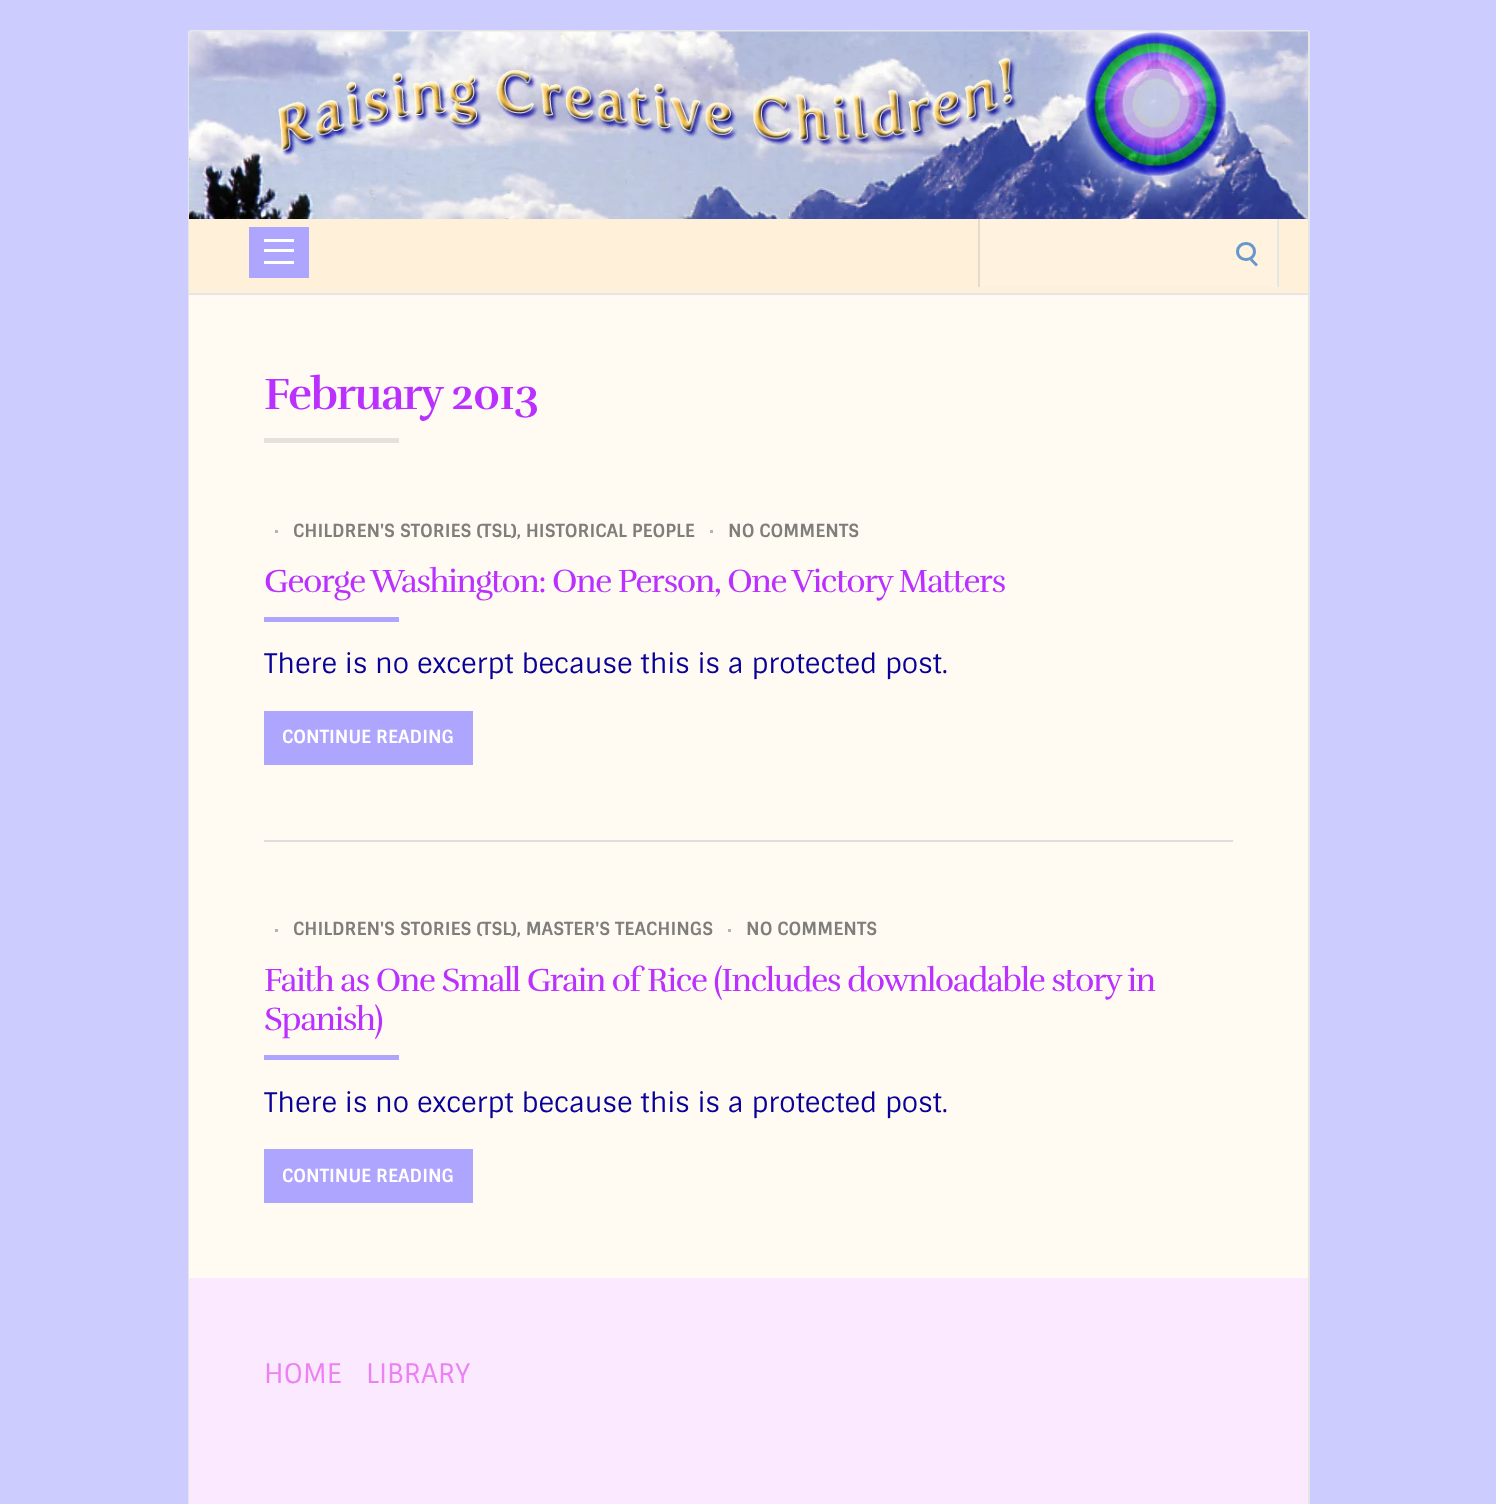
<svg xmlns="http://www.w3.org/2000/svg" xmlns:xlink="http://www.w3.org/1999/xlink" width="1496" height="1504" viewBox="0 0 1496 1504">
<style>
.cls-1{font:bold 45px Rufina;letter-spacing:-1.5px;fill:#ba30ff}
.cls-2{font:bold 18px Sintony;fill:#807e7a}
.cls-3{font:33px Rufina;letter-spacing:-1.5px;fill:#ba30ff}
.cls-4{font:27px Sintony;fill:#090098}
.cls-5{font:bold 18px Sintony;fill:#ffffff}
.cls-6{font:27px Sintony;fill:#ec82f2}
</style>
<rect width="100%" height="100%" fill="#ccccff"/>
<rect fill="none" stroke="#e4e5e7" stroke-width="2" x="189" y="31" width="1120" height="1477" rx="2"/>
<image xlink:href="image0.png" x="189" y="31" width="1119" height="188"/>
<rect fill="#fff0da" x="189" y="219" width="1119" height="74"/>
<rect fill="#e4e5e7" x="189" y="293" width="1119" height="2"/>
<rect fill="#aea5ff" x="249" y="227" width="60" height="51"/>
<rect fill="#ffffff" x="264" y="239" width="30" height="3"/>
<rect fill="#ffffff" x="264" y="249" width="30" height="3"/>
<rect fill="#ffffff" x="264" y="261" width="30" height="3"/>
<rect fill="#fff2de" x="980" y="219" width="297" height="68"/>
<rect fill="#e4e5e7" x="1277" y="219" width="2" height="68"/>
<rect fill="#e6dac8" x="978" y="219" width="2" height="68"/>
<rect fill="none" stroke="#6698cb" stroke-width="3" x="1237.5" y="243.5" width="17" height="16" rx="8"/>
<path fill="#6698cb" d="M1250 260.5L1252 258.5L1258 264.5L1256 266.5Z"/>
<rect fill="#fffbf3" x="189" y="295" width="1119" height="983"/>
<rect fill="#e6e2db" x="264" y="438" width="135" height="5"/>
<rect fill="#dddddd" x="264" y="840" width="969" height="2"/>
<rect fill="#aeb6b9" x="275" y="530" width="3" height="3"/>
<rect fill="#aeb6b9" x="710" y="530" width="3" height="3"/>
<rect fill="#aea5ff" x="264" y="617" width="135" height="5"/>
<rect fill="#aea5ff" x="264" y="711" width="209" height="54"/>
<rect fill="#aeb6b9" x="275" y="929" width="3" height="3"/>
<rect fill="#aeb6b9" x="728" y="929" width="3" height="3"/>
<rect fill="#aea5ff" x="264" y="1055" width="135" height="5"/>
<rect fill="#aea5ff" x="264" y="1149" width="209" height="54"/>
<rect fill="#fae9ff" x="189" y="1278" width="1119" height="226"/>
<text class="cls-1" x="264" y="409">February 2013</text>
<text class="cls-2" x="293" y="537">CHILDREN'S STORIES (TSL), HISTORICAL PEOPLE</text>
<text class="cls-2" x="728" y="537">NO COMMENTS</text>
<text class="cls-3" x="264" y="592">George Washington: One Person, One Victory Matters</text>
<text class="cls-4" x="264" y="673">There is no excerpt because this is a protected post.</text>
<text class="cls-5" x="282" y="743">CONTINUE READING</text>
<text class="cls-2" x="293" y="935">CHILDREN'S STORIES (TSL), MASTER'S TEACHINGS</text>
<text class="cls-2" x="746" y="935">NO COMMENTS</text>
<text class="cls-3"><tspan x="264" y="991">Faith as One Small Grain of Rice (Includes downloadable story in</tspan><tspan x="264" y="1030">Spanish)</tspan></text>
<text class="cls-4" x="264" y="1112">There is no excerpt because this is a protected post.</text>
<text class="cls-5" x="282" y="1182">CONTINUE READING</text>
<text class="cls-6" x="264" y="1383">HOME</text>
<text class="cls-6" x="366" y="1383">LIBRARY</text>
</svg>
